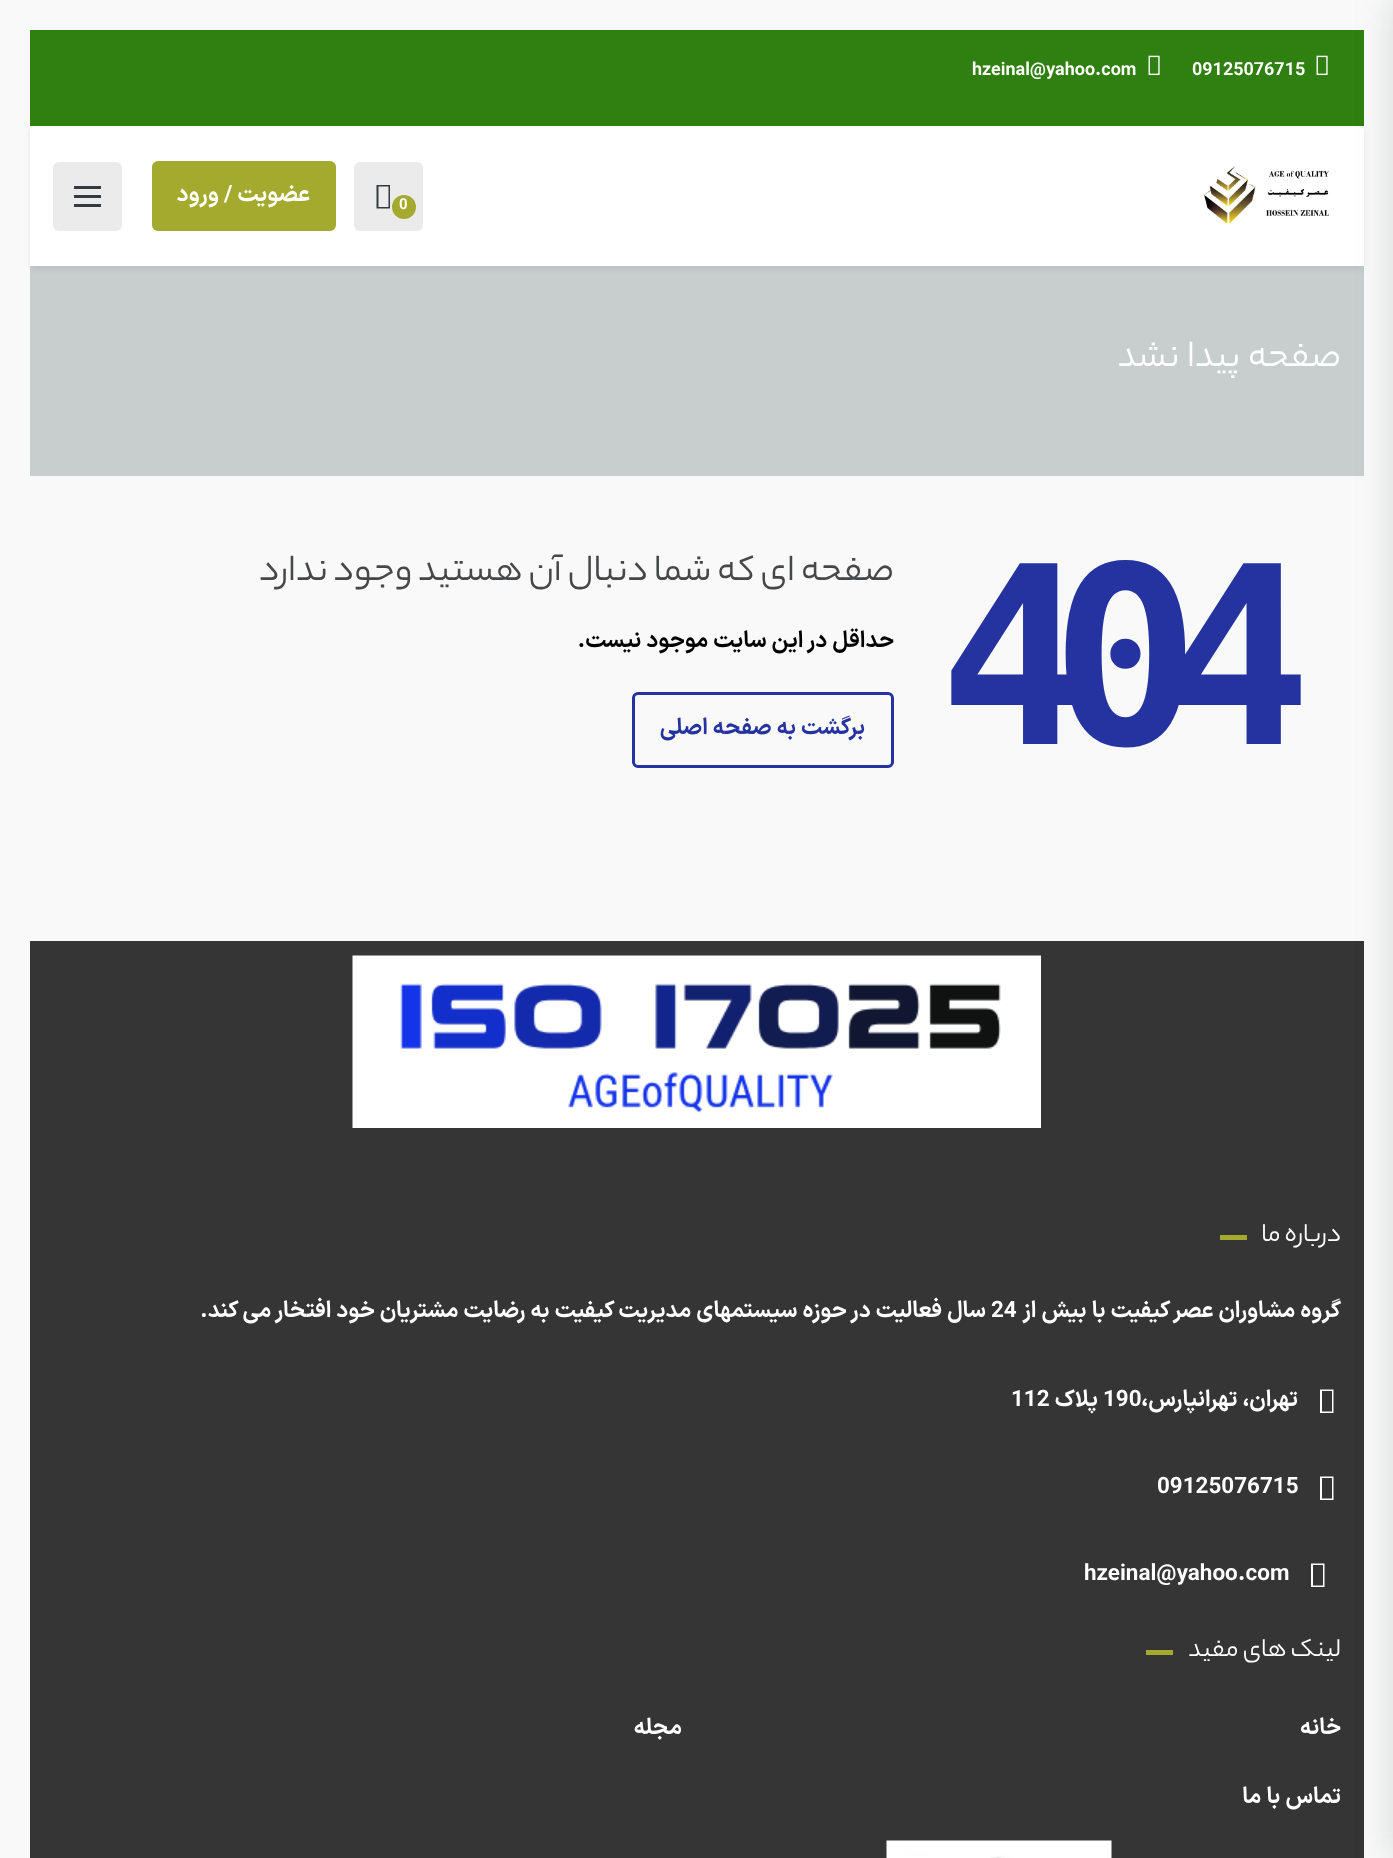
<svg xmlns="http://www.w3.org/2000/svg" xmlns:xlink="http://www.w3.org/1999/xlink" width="1393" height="1858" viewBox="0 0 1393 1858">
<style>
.cls-1{font:bold 18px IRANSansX;fill:#ffffff}
.cls-2{font:bold 15px IRANSansX;fill:#ffffff}
.cls-3{font:bold 22.5px IRANSansX;direction:rtl;fill:#ffffff}
.cls-4{font:39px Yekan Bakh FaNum;direction:rtl;fill:#ffffff}
.cls-5{font:bold 248px DejaVu Sans Mono;letter-spacing:-37.5px;fill:#2433a0}
.cls-6{font:39px Yekan Bakh FaNum;direction:rtl;fill:#464749}
.cls-7{font:bold 22.5px IRANSansX;direction:rtl;fill:#000000}
.cls-8{font:bold 22.5px IRANSansX;direction:rtl;fill:#2433a0}
.cls-9{font:27px Yekan Bakh FaNum;direction:rtl;fill:#ffffff}
.cls-10{font:bold 22.5px IRANSansX;fill:#ffffff}
</style>
<rect width="100%" height="100%" fill="#f9f9f9"/>
<rect fill="#307f11" x="30" y="30" width="1334" height="96"/>
<rect fill="#c8cecd" x="30" y="266" width="1334" height="210"/>
<rect fill="#000000" fill-opacity="0.07" filter="blur(3px)" x="30" y="129" width="1334" height="140"/>
<rect fill="#ffffff" x="30" y="126" width="1334" height="140"/>
<rect fill="#353535" x="30" y="941" width="1334" height="917"/>
<rect fill="#73767f" fill-opacity="0.17" filter="blur(15px)" x="1386" y="0" width="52" height="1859"/>
<image xlink:href="image0.png" x="1316" y="55" width="12" height="20"/>
<image xlink:href="image0.png" x="1148" y="55" width="12" height="20"/>
<image xlink:href="image1.png" x="1203" y="166" width="126" height="58"/>
<rect fill="#ebebeb" x="354" y="162" width="69" height="69" rx="6"/>
<circle fill="#a4aa2e" cx="404" cy="207" r="12"/>
<path fill="#343a40" d="M376.5 208.5V185H390V208.5ZM378.5 207H388.5V186.5H378.5Z"/>
<rect fill="#a4aa2e" x="152" y="161" width="184" height="70" rx="6"/>
<rect fill="#ebebeb" x="53" y="162" width="69" height="69" rx="6"/>
<rect fill="#343a40" x="74" y="195" width="27" height="3"/>
<rect fill="#343a40" x="74" y="186" width="27" height="3"/>
<rect fill="#343a40" x="74" y="204" width="27" height="3"/>
<rect fill="none" stroke="#2433a0" stroke-width="3" x="633.5" y="693.5" width="259" height="73" rx="4.5"/>
<image xlink:href="image2.png" x="352" y="955" width="689" height="173"/>
<rect fill="#a4aa2e" x="1220" y="1235" width="27" height="5"/>
<path fill="#ffffff" d="M1320 1413V1389.5H1333.5V1413ZM1322 1411.5H1332V1391H1322Z"/>
<path fill="#ffffff" d="M1320 1500V1476.5H1333.5V1500ZM1322 1498.5H1332V1478H1322Z"/>
<path fill="#ffffff" d="M1311 1587V1563.5H1324.5V1587ZM1313 1585.5H1323V1565H1313Z"/>
<rect fill="#a4aa2e" x="1146" y="1650" width="27" height="5"/>
<image xlink:href="image3.png" x="886" y="1840" width="226" height="18"/>
<text class="cls-1" x="1192" y="75">09125076715</text>
<text class="cls-1" x="972" y="75">hzeinal@yahoo.com</text>
<text class="cls-2" x="399" y="209">0</text>
<text class="cls-3" x="310" y="201">عضویت / ورود</text>
<text class="cls-4" x="1341" y="366" word-spacing="2">صفحه پیدا نشد</text>
<text class="cls-5" x="939" y="744">404</text>
<text class="cls-6" x="894" y="580">صفحه ای که شما دنبال آن هستید وجود ندارد</text>
<text class="cls-7" x="894" y="647">حداقل در این سایت موجود نیست.</text>
<text class="cls-8" x="865" y="734">برگشت به صفحه اصلی</text>
<text class="cls-9" x="1341" y="1241">درباره ما</text>
<text class="cls-3" x="1341" y="1317">گروه مشاوران عصر کیفیت با بیش از</text>
<text class="cls-10" x="991" y="1317">24</text>
<text class="cls-3" x="986" y="1317">سال فعالیت در حوزه سیستمهای مدیریت کیفیت به رضایت مشتریان خود افتخار می کند.</text>
<text class="cls-3" x="1298" y="1406">تهران، تهرانپارس،</text>
<text class="cls-10" x="1103" y="1406">190</text>
<text class="cls-3" x="1098" y="1406">پلاک</text>
<text class="cls-10" x="1011" y="1406">112</text>
<text class="cls-10" x="1157" y="1493">09125076715</text>
<text class="cls-10" x="1084" y="1580">hzeinal@yahoo.com</text>
<text class="cls-9" x="1341" y="1656">لینک های مفید</text>
<text class="cls-3" x="1341" y="1734">خانه</text>
<text class="cls-3" x="682" y="1734">مجله</text>
<text class="cls-3" x="1341" y="1803">تماس با ما</text>
</svg>
